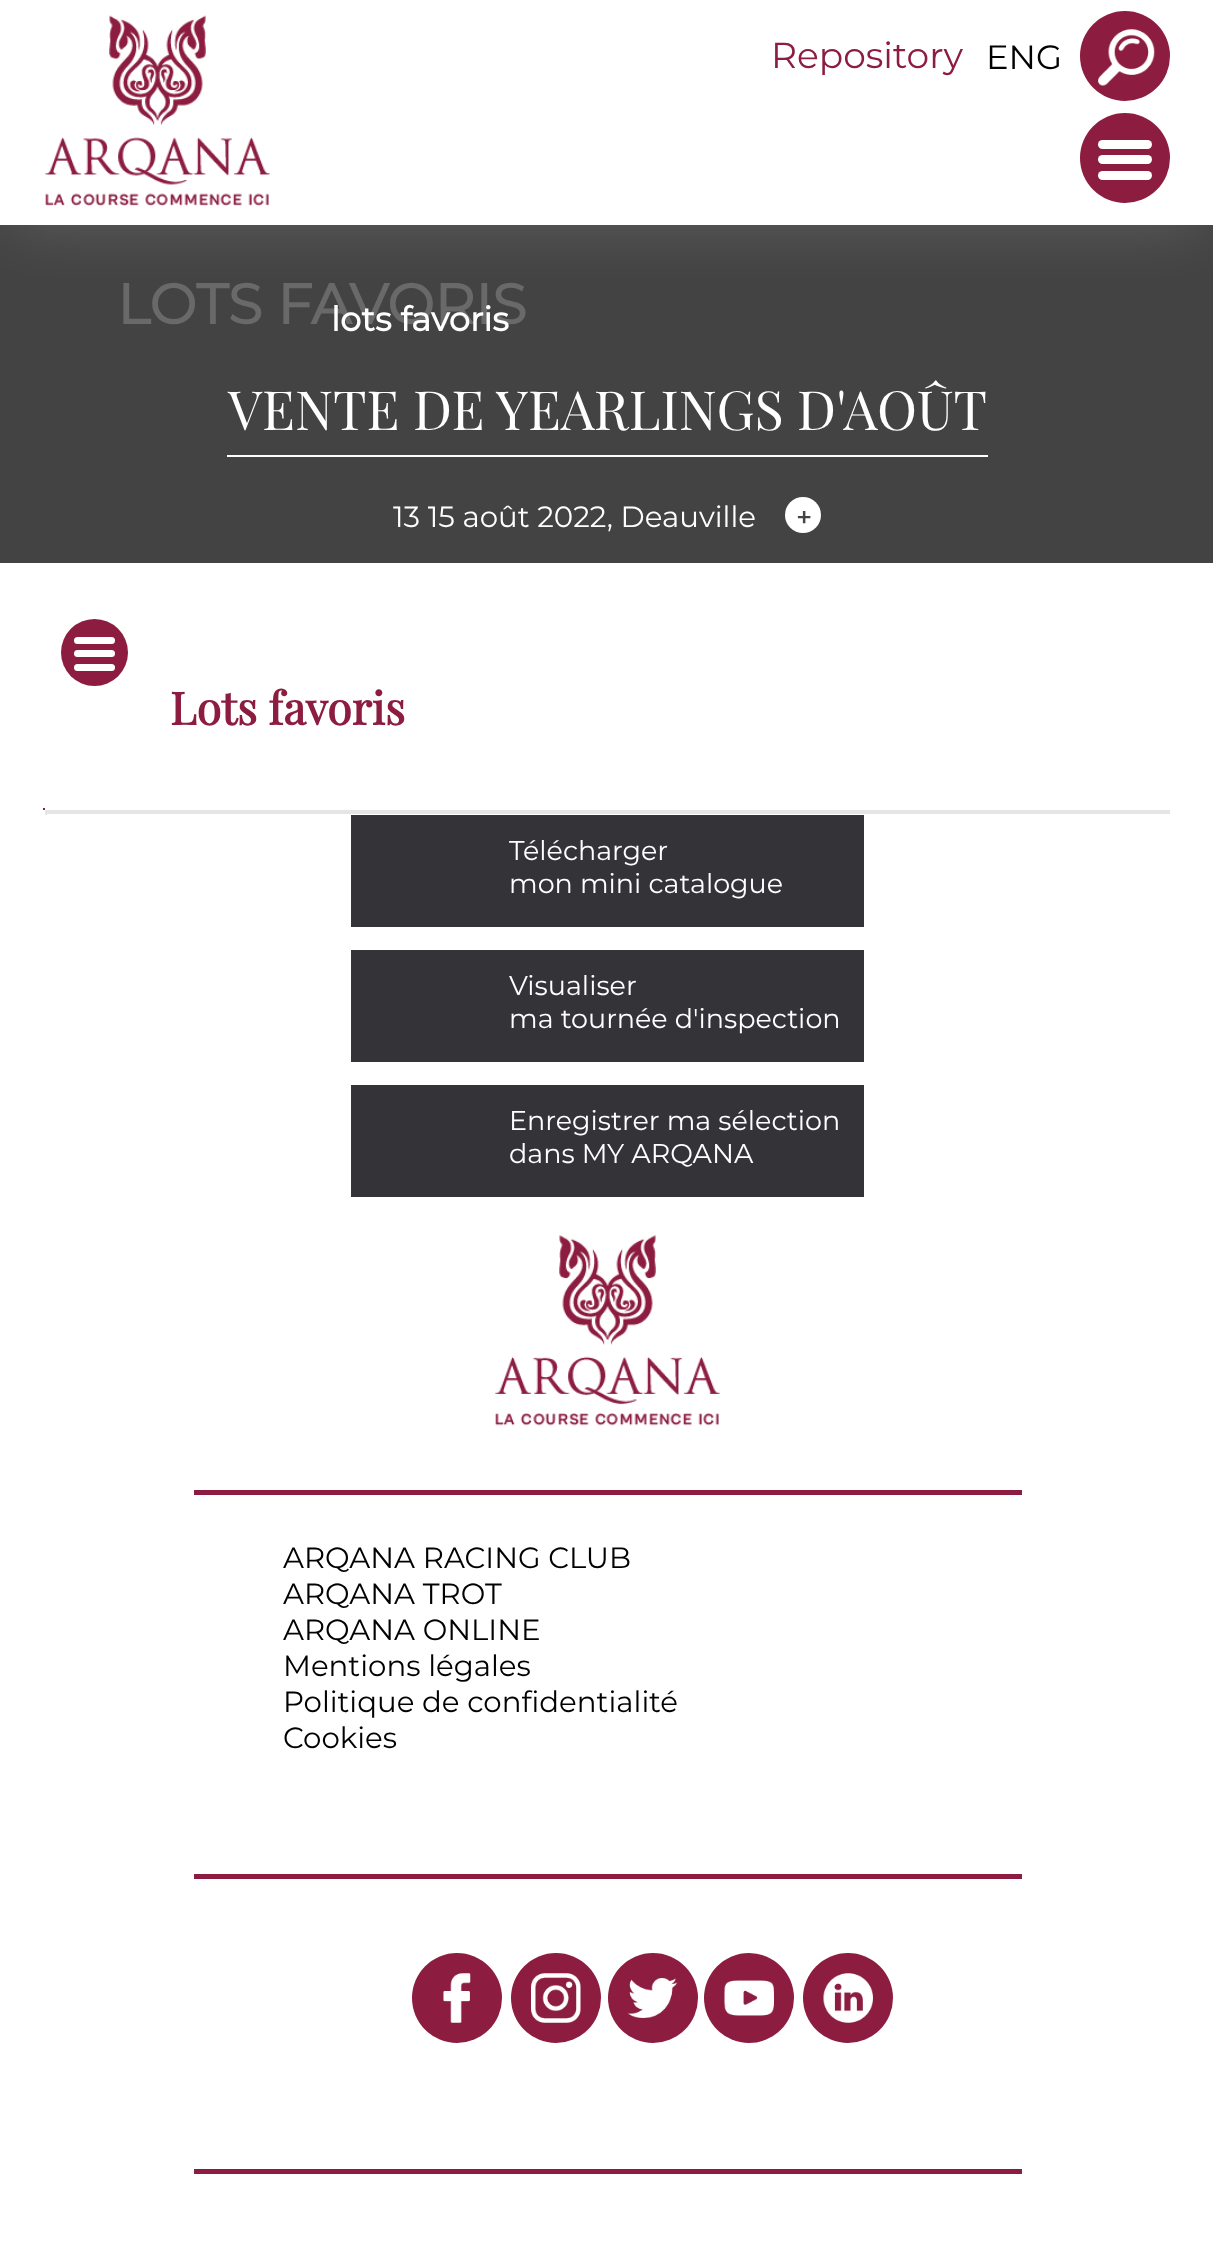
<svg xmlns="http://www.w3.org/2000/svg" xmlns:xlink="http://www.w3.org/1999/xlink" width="1213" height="2255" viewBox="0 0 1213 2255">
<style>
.cls-1{font:100 36px Montserrat;fill:#8c1d40}
.cls-2{font:100 33.75px Montserrat;fill:#000000}
.cls-3{font:bold 56.25px Montserrat;fill:#696969}
.cls-4{font:bold 33.75px Montserrat;fill:#ffffff}
.cls-5{font:54px Playfair Display;fill:#ffffff}
.cls-6{font:100 29.25px Montserrat;fill:#ffffff}
.cls-7{font:bold 27px Montserrat;fill:#444444}
.cls-8{font:bold 45px Playfair Display;fill:#8c1d40}
.cls-9{font:100 27px Montserrat;fill:#ffffff}
.cls-10{font:100 29.25px Montserrat;fill:#000000}
</style>
<defs>
<clipPath id="clip1"><rect x="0" y="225" width="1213" height="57"/></clipPath>
</defs>
<rect width="100%" height="100%" fill="#ffffff"/>
<rect fill="#434343" x="0" y="225" width="1213" height="338"/>
<g clip-path="url(#clip1)">
<rect fill="#787878" fill-opacity="0.5" filter="blur(31.5px)" x="9" y="20" width="1197" height="207"/>
</g>
<image xlink:href="image0.png" x="45" y="15" width="225" height="191"/>
<circle fill="#8c1d40" cx="1125" cy="56" r="45"/>
<image xlink:href="image1.png" x="1098" y="29" width="57" height="57"/>
<circle fill="#8c1d40" cx="1125" cy="158" r="45"/>
<rect fill="#ffffff" x="1098" y="140" width="54" height="9" rx="4.5"/>
<rect fill="#ffffff" x="1098" y="155" width="54" height="9" rx="4.5"/>
<rect fill="#ffffff" x="1098" y="171" width="54" height="9" rx="4.5"/>
<rect fill="#ffffff" x="227" y="455" width="761" height="2"/>
<circle fill="#ffffff" cx="803" cy="515" r="18"/>
<circle fill="#8c1d40" cx="94.5" cy="652.5" r="33.5"/>
<rect fill="#ffffff" x="74" y="650" width="41" height="7" rx="3.5"/>
<rect fill="#ffffff" x="74" y="637" width="41" height="7" rx="3.5"/>
<rect fill="#ffffff" x="74" y="664" width="41" height="7" rx="3.5"/>
<rect fill="#8c1d40" x="43" y="808" width="2" height="2"/>
<rect fill="#e5e5e5" x="45" y="810" width="1125" height="4"/>
<rect fill="#e5e5e5" x="45" y="810" width="2" height="5"/>
<rect fill="#343338" x="351" y="815" width="513" height="112"/>
<rect fill="#343338" x="351" y="950" width="513" height="112"/>
<rect fill="#343338" x="351" y="1085" width="513" height="112"/>
<image xlink:href="image2.png" x="495" y="1235" width="225" height="191"/>
<rect fill="#8c1d40" x="194" y="1490" width="828" height="5"/>
<rect fill="#8c1d40" x="194" y="1874" width="828" height="5"/>
<circle fill="#8c1d40" cx="457" cy="1998" r="45"/>
<image xlink:href="image3.png" x="443" y="1973" width="28" height="50"/>
<circle fill="#8c1d40" cx="556" cy="1998" r="45"/>
<image xlink:href="image4.png" x="531" y="1973" width="50" height="50"/>
<circle fill="#8c1d40" cx="653" cy="1998" r="45"/>
<image xlink:href="image5.png" x="627" y="1978" width="51" height="40"/>
<circle fill="#8c1d40" cx="749" cy="1998" r="45"/>
<image xlink:href="image6.png" x="724" y="1980" width="50" height="36"/>
<circle fill="#8c1d40" cx="848" cy="1998" r="45"/>
<image xlink:href="image7.png" x="823" y="1973" width="50" height="50"/>
<rect fill="#8c1d40" x="194" y="2169" width="828" height="5"/>
<text class="cls-1" x="771" y="68">Repository</text>
<text class="cls-2" x="986" y="69">ENG</text>
<text class="cls-3" x="117" y="324">LOTS FAVORIS</text>
<text class="cls-4" x="331" y="331">lots favoris</text>
<text class="cls-5" x="228" y="430">VENTE DE YEARLINGS D'AOÛT</text>
<text class="cls-6" x="393" y="527">13 15 août 2022, Deauville</text>
<text class="cls-7" x="796" y="527">+</text>
<text class="cls-8" x="170" y="725">Lots favoris</text>
<text class="cls-9"><tspan x="509" y="860">Télécharger</tspan><tspan x="509" y="893">mon mini catalogue</tspan></text>
<text class="cls-9"><tspan x="509" y="995">Visualiser</tspan><tspan x="509" y="1028">ma tournée d'inspection</tspan></text>
<text class="cls-9"><tspan x="509" y="1130">Enregistrer ma sélection</tspan><tspan x="509" y="1163">dans MY ARQANA</tspan></text>
<text class="cls-10"><tspan x="283" y="1568">ARQANA RACING CLUB</tspan><tspan x="283" y="1604">ARQANA TROT</tspan><tspan x="283" y="1640">ARQANA ONLINE</tspan><tspan x="283" y="1676">Mentions légales</tspan><tspan x="283" y="1712">Politique de confidentialité</tspan><tspan x="283" y="1748">Cookies</tspan></text>
</svg>
